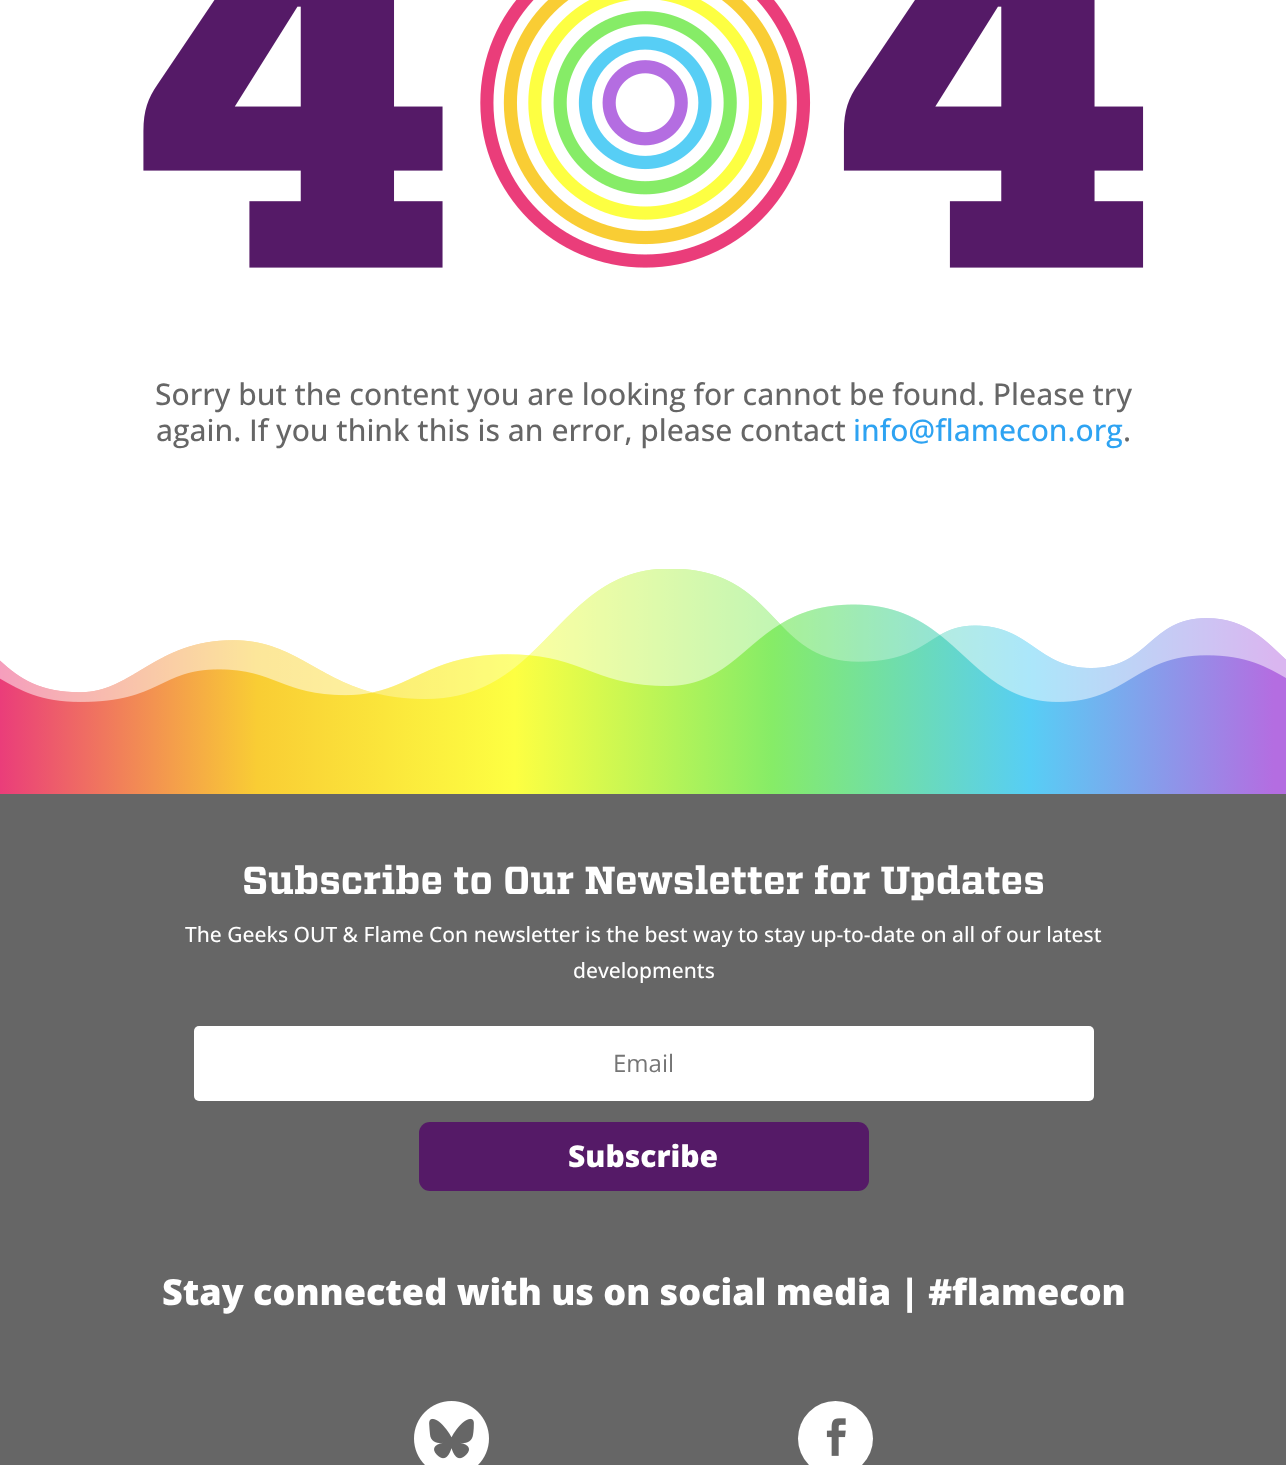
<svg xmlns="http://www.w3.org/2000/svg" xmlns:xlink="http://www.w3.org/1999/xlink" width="1286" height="1465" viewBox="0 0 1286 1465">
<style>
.cls-1{font:500 30px Open Sans;fill:#666666}
.cls-2{font:500 30px Open Sans;fill:#2ea3f2}
.cls-3{font:bold 39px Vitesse;fill:#ffffff}
.cls-4{font:500 21px Open Sans;fill:#ffffff}
.cls-5{font:24px Open Sans;fill:#757575}
.cls-6{font:800 30px Open Sans;fill:#ffffff}
.cls-7{font:800 36px Open Sans;fill:#ffffff}
</style>
<defs>
<linearGradient id="g1" gradientUnits="userSpaceOnUse" x1="0" y1="681" x2="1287" y2="681"><stop offset="0" stop-color="#ea3d7a"/><stop offset="0.2" stop-color="#f9cd34"/><stop offset="0.4" stop-color="#fdff42"/><stop offset="0.6" stop-color="#86ec67"/><stop offset="0.8" stop-color="#57cef5"/><stop offset="0.99" stop-color="#b46de1"/></linearGradient>
</defs>
<rect width="100%" height="100%" fill="#ffffff"/>
<image xlink:href="image0.png" x="143" y="0" width="1001" height="268"/>
<rect fill="url(#g1)" x="0" y="569" width="1286" height="225"/>
<image xlink:href="image1.png" x="0" y="569" width="1286" height="133"/>
<rect fill="#666666" x="0" y="794" width="1286" height="671"/>
<rect fill="#ffffff" x="194" y="1026" width="900" height="75" rx="5"/>
<rect fill="#551a67" x="419" y="1122" width="450" height="69" rx="11"/>
<image xlink:href="image2.png" x="414" y="1401" width="75" height="64"/>
<circle fill="#ffffff" cx="835.5" cy="1438.5" r="37.5"/>
<image xlink:href="image3.png" x="826" y="1418" width="20" height="38"/>
<text class="cls-1" x="155" y="405">Sorry but the content you are looking for cannot be found. Please try</text>
<text class="cls-1" x="156" y="441">again. If you think this is an error, please contact</text>
<text class="cls-2" x="853" y="441">info@flamecon.org</text>
<text class="cls-1" x="1123" y="441">.</text>
<text class="cls-3" x="242" y="894">Subscribe to Our Newsletter for Updates</text>
<text class="cls-4" x="185" y="942">The Geeks OUT &amp; Flame Con newsletter is the best way to stay up-to-date on all of our latest</text>
<text class="cls-4" x="573" y="978">developments</text>
<text class="cls-5" x="613" y="1072">Email</text>
<text class="cls-6" x="568" y="1167">Subscribe</text>
<text class="cls-7" x="162" y="1305">Stay connected with us on social media | #flamecon</text>
</svg>
